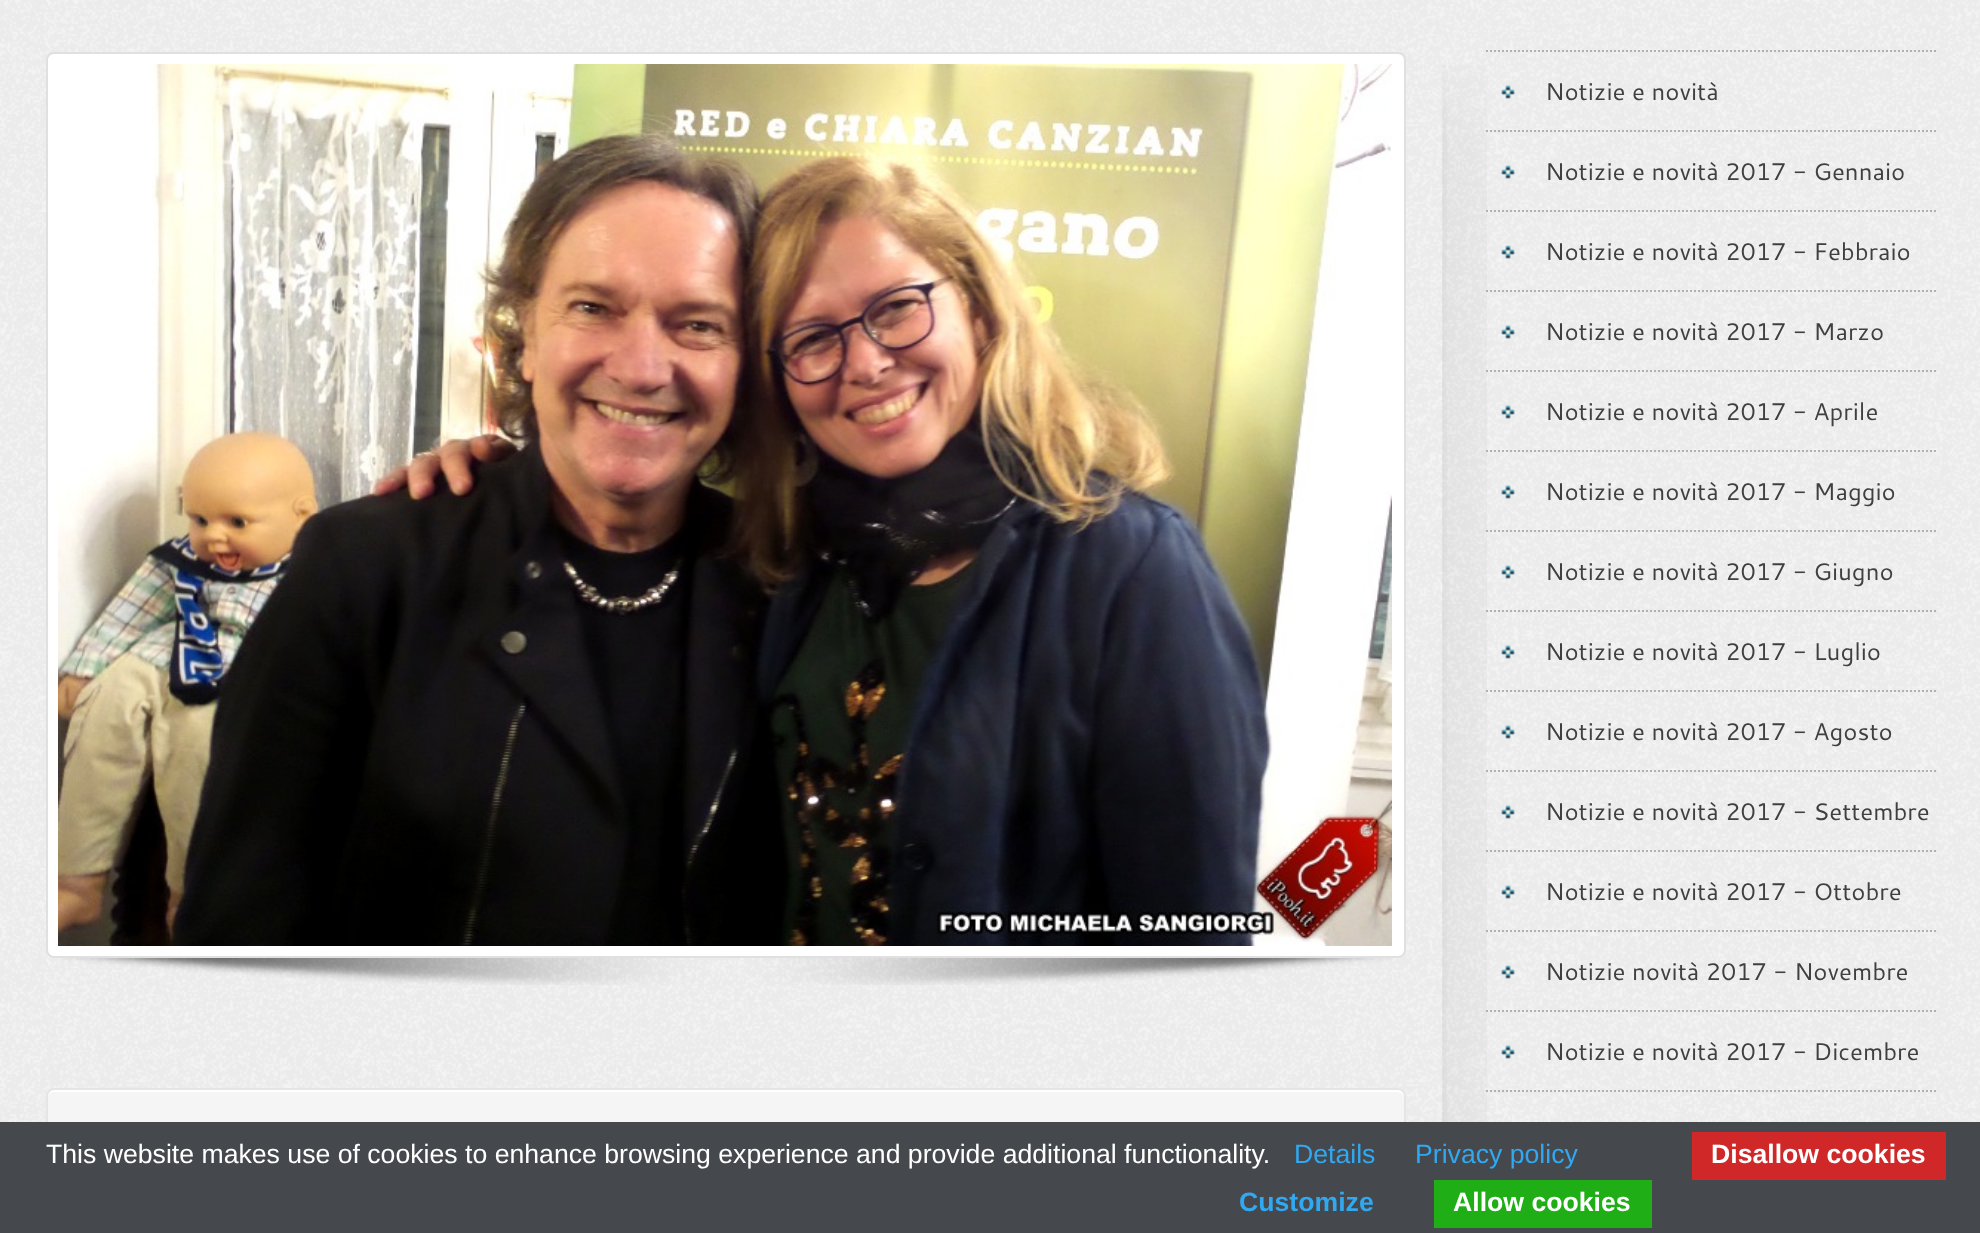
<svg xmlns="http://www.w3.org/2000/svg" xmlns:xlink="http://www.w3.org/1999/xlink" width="1980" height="1233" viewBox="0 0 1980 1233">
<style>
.cls-1{font:24px Cantarell;fill:#404040}
.cls-2{font:26.65px Liberation Sans;fill:#ffffff}
.cls-3{font:26.65px Liberation Sans;fill:#31a8f0}
.cls-4{font:bold 26.65px Liberation Sans;fill:#ffffff}
.cls-5{font:bold 26.65px Liberation Sans;fill:#31a8f0}
</style>
<defs>
<clipPath id="clip1"><rect x="46" y="1088" width="1360" height="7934" rx="8"/></clipPath>
<linearGradient id="g1" gradientUnits="userSpaceOnUse" x1="726" y1="1090" x2="726" y2="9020"><stop offset="0" stop-color="#f5f5f5"/><stop offset="1" stop-color="#ffffff"/></linearGradient>
</defs>
<rect width="100%" height="100%" fill="#ffffff"/>
<image xlink:href="image0.png" x="0" y="0" width="1980" height="1122"/>
<image xlink:href="image1.png" x="60" y="958" width="1332" height="27"/>
<rect fill="#ffffff" stroke="#e0e0e0" stroke-width="2" x="47" y="53" width="1358" height="904" rx="7"/>
<image xlink:href="image2.png" x="58" y="64" width="1334" height="882"/>
<g clip-path="url(#clip1)">
<rect fill="url(#g1)" x="46" y="1090" width="1360" height="32"/>
</g>
<path fill="#ffffff" d="M54 1092H1398C1401 1092 1404 1095 1404 1098V1096C1404 1093 1401 1090 1398 1090H54C51 1090 48 1093 48 1096V1098C48 1095 51 1092 54 1092Z"/>
<rect fill="none" stroke="#e5e5e5" stroke-width="2" x="47" y="1089" width="1358" height="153" rx="7"/>
<image xlink:href="image3.png" x="1442" y="65" width="45" height="1057"/>
<path fill="none" stroke="#b1b1b1" stroke-width="2" stroke-dasharray="2 2" d="M1486 51H1936"/>
<image xlink:href="image4.png" x="1501" y="85" width="14" height="14"/>
<path fill="none" stroke="#b1b1b1" stroke-width="2" stroke-dasharray="2 2" d="M1486 131H1936"/>
<image xlink:href="image5.png" x="1501" y="165" width="14" height="14"/>
<path fill="none" stroke="#b1b1b1" stroke-width="2" stroke-dasharray="2 2" d="M1486 211H1936"/>
<image xlink:href="image6.png" x="1501" y="245" width="14" height="14"/>
<path fill="none" stroke="#b1b1b1" stroke-width="2" stroke-dasharray="2 2" d="M1486 291H1936"/>
<image xlink:href="image7.png" x="1501" y="325" width="14" height="14"/>
<path fill="none" stroke="#b1b1b1" stroke-width="2" stroke-dasharray="2 2" d="M1486 371H1936"/>
<image xlink:href="image8.png" x="1501" y="405" width="14" height="14"/>
<path fill="none" stroke="#b1b1b1" stroke-width="2" stroke-dasharray="2 2" d="M1486 451H1936"/>
<image xlink:href="image9.png" x="1501" y="485" width="14" height="14"/>
<path fill="none" stroke="#b1b1b1" stroke-width="2" stroke-dasharray="2 2" d="M1486 531H1936"/>
<image xlink:href="image10.png" x="1501" y="565" width="14" height="14"/>
<path fill="none" stroke="#b1b1b1" stroke-width="2" stroke-dasharray="2 2" d="M1486 611H1936"/>
<image xlink:href="image11.png" x="1501" y="645" width="14" height="14"/>
<path fill="none" stroke="#b1b1b1" stroke-width="2" stroke-dasharray="2 2" d="M1486 691H1936"/>
<image xlink:href="image12.png" x="1501" y="725" width="14" height="14"/>
<path fill="none" stroke="#b1b1b1" stroke-width="2" stroke-dasharray="2 2" d="M1486 771H1936"/>
<image xlink:href="image13.png" x="1501" y="805" width="14" height="14"/>
<path fill="none" stroke="#b1b1b1" stroke-width="2" stroke-dasharray="2 2" d="M1486 851H1936"/>
<image xlink:href="image14.png" x="1501" y="885" width="14" height="14"/>
<path fill="none" stroke="#b1b1b1" stroke-width="2" stroke-dasharray="2 2" d="M1486 931H1936"/>
<image xlink:href="image15.png" x="1501" y="965" width="14" height="14"/>
<path fill="none" stroke="#b1b1b1" stroke-width="2" stroke-dasharray="2 2" d="M1486 1011H1936"/>
<image xlink:href="image4.png" x="1501" y="1045" width="14" height="14"/>
<path fill="none" stroke="#b1b1b1" stroke-width="2" stroke-dasharray="2 2" d="M1486 1091H1936"/>
<rect fill="#45484d" x="0" y="1122" width="1980" height="111"/>
<rect fill="#d02828" x="1692" y="1132" width="254" height="48"/>
<rect fill="#1fae16" x="1434" y="1180" width="218" height="48"/>
<text class="cls-1" x="1545" y="100">Notizie e novità</text>
<text class="cls-1" x="1545" y="180">Notizie e novità 2017 - Gennaio</text>
<text class="cls-1" x="1545" y="260">Notizie e novità 2017 - Febbraio</text>
<text class="cls-1" x="1545" y="340">Notizie e novità 2017 - Marzo</text>
<text class="cls-1" x="1545" y="420">Notizie e novità 2017 - Aprile</text>
<text class="cls-1" x="1545" y="500">Notizie e novità 2017 - Maggio</text>
<text class="cls-1" x="1545" y="580">Notizie e novità 2017 - Giugno</text>
<text class="cls-1" x="1545" y="660">Notizie e novità 2017 - Luglio</text>
<text class="cls-1" x="1545" y="740">Notizie e novità 2017 - Agosto</text>
<text class="cls-1" x="1545" y="820">Notizie e novità 2017 - Settembre</text>
<text class="cls-1" x="1545" y="900">Notizie e novità 2017 - Ottobre</text>
<text class="cls-1" x="1545" y="980">Notizie novità 2017 - Novembre</text>
<text class="cls-1" x="1545" y="1060">Notizie e novità 2017 - Dicembre</text>
<text class="cls-2" x="46" y="1163">This website makes use of cookies to enhance browsing experience and provide additional functionality.</text>
<text class="cls-3" x="1294" y="1163">Details</text>
<text class="cls-3" x="1415" y="1163">Privacy policy</text>
<text class="cls-4" x="1711" y="1163">Disallow cookies</text>
<text class="cls-5" x="1239" y="1211">Customize</text>
<text class="cls-4" x="1453" y="1211">Allow cookies</text>
</svg>
